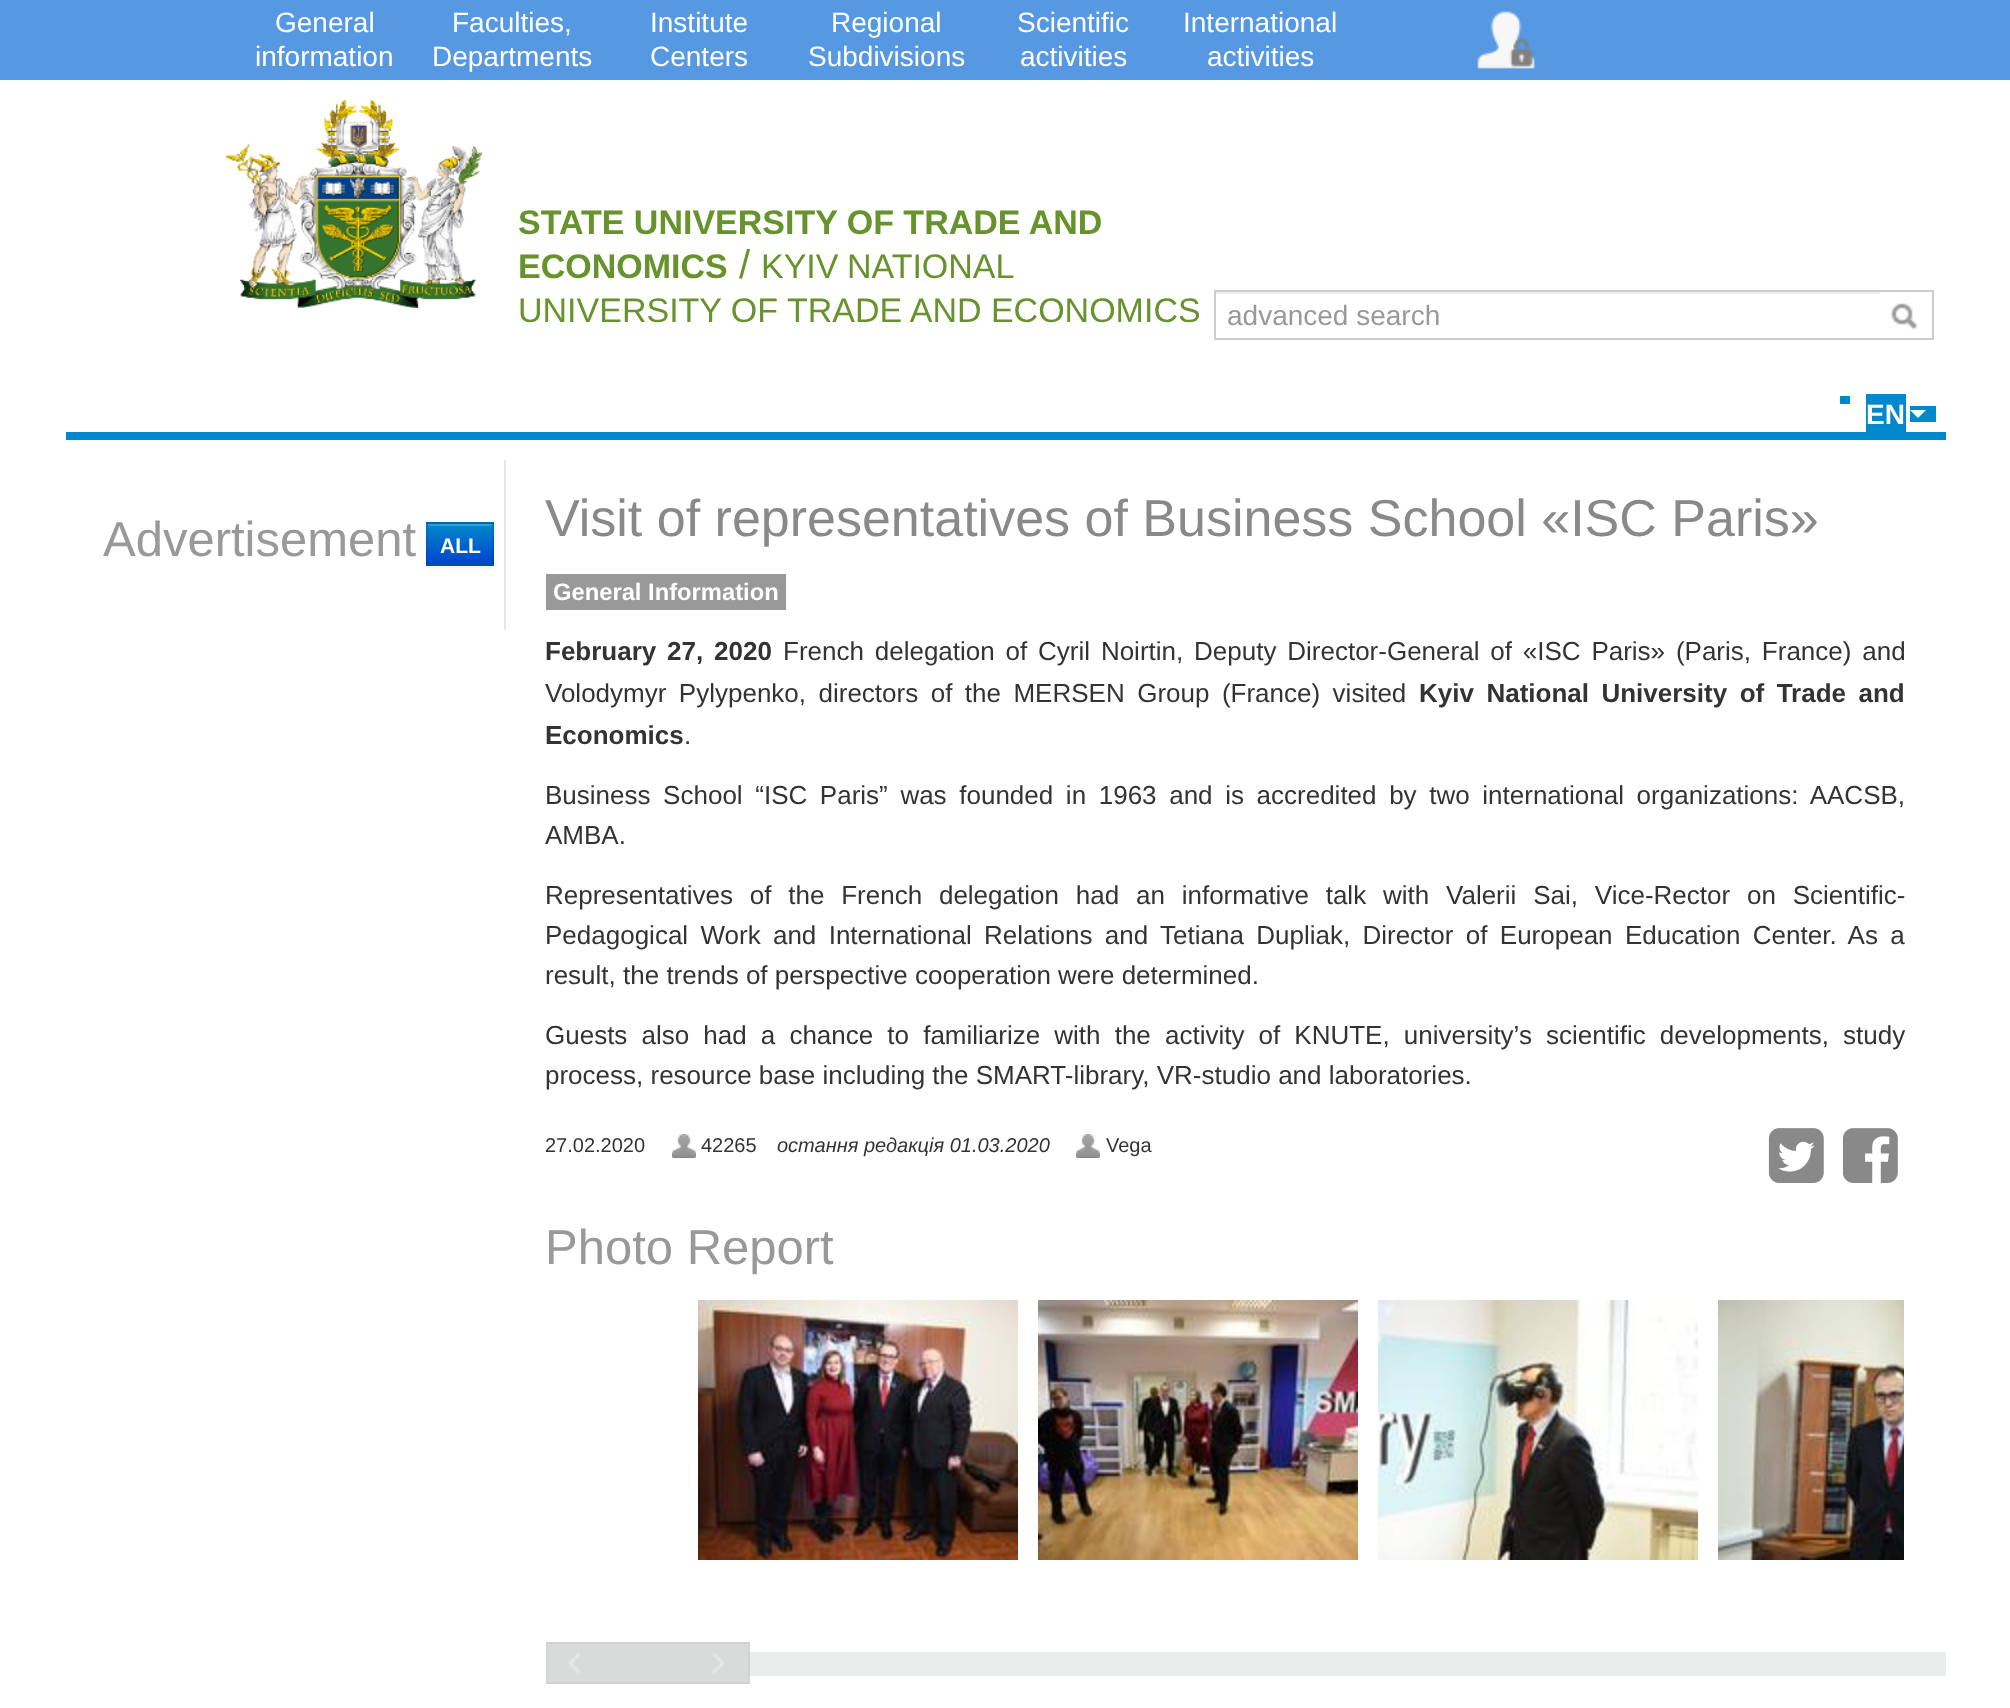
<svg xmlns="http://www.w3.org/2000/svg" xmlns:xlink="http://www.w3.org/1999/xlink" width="2010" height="1708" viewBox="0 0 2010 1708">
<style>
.cls-1{font:28px Liberation Sans;fill:#ffffff}
.cls-2{font:bold 34px Liberation Sans;fill:#66932c}
.cls-3{font:40px Liberation Sans;fill:#66932c}
.cls-4{font:34px Liberation Sans;fill:#66932c}
.cls-5{font:28px Liberation Sans;fill:#999999}
.cls-6{font:bold 28px Liberation Sans;fill:#ffffff}
.cls-7{font:49px Liberation Sans;fill:#999999}
.cls-8{font:bold 21px Liberation Sans;fill:#ffffff}
.cls-9{font:52px Liberation Sans;fill:#898989}
.cls-10{font:bold 23.75px Liberation Sans;fill:#ffffff}
.cls-11{font:bold 26px Liberation Sans;fill:#333333}
.cls-12{font:26px Liberation Sans;fill:#333333}
.cls-13{font:20px Liberation Sans;fill:#333333}
.cls-14{font:italic 20px Liberation Sans;fill:#333333}
</style>
<defs>
<linearGradient id="g1" gradientUnits="userSpaceOnUse" x1="460" y1="524" x2="460" y2="564"><stop offset="0" stop-color="#0088cc"/><stop offset="1" stop-color="#0044cc"/></linearGradient>
</defs>
<rect width="100%" height="100%" fill="#ffffff"/>
<rect fill="#5698e1" x="0" y="0" width="2010" height="80"/>
<image xlink:href="image0.png" x="1477" y="11" width="58" height="58"/>
<image xlink:href="image1.png" x="226" y="100" width="256" height="208"/>
<rect fill="none" stroke="#cccccc" stroke-width="2" x="1879" y="291" width="54" height="48"/>
<rect fill="#ffffff" x="1878" y="294" width="2" height="44"/>
<rect fill="#ececec" x="1216" y="292" width="664" height="2"/>
<rect fill="#cccccc" x="1214" y="290" width="666" height="2"/>
<rect fill="#cccccc" x="1214" y="338" width="666" height="2"/>
<rect fill="#cccccc" x="1214" y="290" width="2" height="50"/>
<image xlink:href="image2.png" x="1891" y="303" width="27" height="27"/>
<rect fill="#0088cc" x="66" y="432" width="1880" height="8"/>
<rect fill="#0088cc" x="1840" y="396" width="10" height="8"/>
<rect fill="#0088cc" x="1866" y="394" width="40" height="38"/>
<rect fill="#0088cc" x="1910" y="406" width="26" height="16"/>
<path fill="#ffffff" d="M1910 410H1926L1918 418Z"/>
<rect fill="#e5e5e5" x="504" y="460" width="2" height="170"/>
<rect fill="#000000" fill-opacity="0.05" filter="blur(2px)" x="426" y="524" width="68" height="44"/>
<rect fill="#006dcc" x="426" y="522" width="68" height="44"/>
<rect fill="url(#g1)" x="426" y="524" width="68" height="40"/>
<rect fill="#339ed6" x="428" y="524" width="64" height="2"/>
<path fill="#0062b8" d="M426 522H494L492 524H428Z"/>
<path fill="#000000" fill-opacity="0.1" d="M494 522V566L492 564V524Z"/>
<path fill="#000000" fill-opacity="0.25" d="M494 566H426L428 564H492Z"/>
<path fill="#000000" fill-opacity="0.1" d="M426 566V522L428 524V564Z"/>
<rect fill="#999999" x="546" y="574" width="240" height="36"/>
<image xlink:href="image3.png" x="672" y="1134" width="24" height="24"/>
<image xlink:href="image3.png" x="1076" y="1134" width="24" height="24"/>
<image xlink:href="image4.png" x="1768" y="1128" width="56" height="55"/>
<image xlink:href="image5.png" x="1842" y="1128" width="56" height="55"/>
<image xlink:href="image6.png" x="698" y="1300" width="320" height="260"/>
<image xlink:href="image7.png" x="1038" y="1300" width="320" height="260"/>
<image xlink:href="image8.png" x="1378" y="1300" width="320" height="260"/>
<image xlink:href="image9.png" x="1718" y="1300" width="186" height="260"/>
<rect fill="#ebedec" x="750" y="1652" width="1196" height="24"/>
<rect fill="#d9dbda" x="548" y="1644" width="200" height="38"/>
<image xlink:href="image10.png" x="568" y="1653" width="156" height="21"/>
<rect fill="none" stroke="#d3d3d3" stroke-width="2" x="547" y="1643" width="202" height="40"/>
<text class="cls-1" x="275" y="32">General</text>
<text class="cls-1" x="255" y="66">information</text>
<text class="cls-1" x="452" y="32">Faculties,</text>
<text class="cls-1" x="432" y="66">Departments</text>
<text class="cls-1"><tspan x="650" y="32">Institute</tspan><tspan x="650" y="66">Centers</tspan></text>
<text class="cls-1" x="831" y="32">Regional</text>
<text class="cls-1" x="808" y="66">Subdivisions</text>
<text class="cls-1" x="1017" y="32">Scientific</text>
<text class="cls-1" x="1020" y="66">activities</text>
<text class="cls-1" x="1183" y="32">International</text>
<text class="cls-1" x="1207" y="66">activities</text>
<text class="cls-2"><tspan x="518" y="234">STATE UNIVERSITY OF TRADE AND</tspan><tspan x="518" y="278">ECONOMICS</tspan></text>
<text class="cls-3" x="739" y="278">/</text>
<text class="cls-4" x="761" y="278" word-spacing="-1">KYIV NATIONAL</text>
<text class="cls-4" x="518" y="322">UNIVERSITY OF TRADE AND ECONOMICS</text>
<text class="cls-5" x="1227" y="325">advanced search</text>
<text class="cls-6" x="1866" y="424">EN</text>
<text class="cls-7" x="103" y="556">Advertisement</text>
<text class="cls-8" x="440" y="553">ALL</text>
<text class="cls-9" x="545" y="536">Visit of representatives of Business School «ISC Paris»</text>
<text class="cls-10" x="553" y="600">General Information</text>
<text class="cls-11" x="545" y="660" word-spacing="3.6">February 27, 2020</text>
<text class="cls-12" x="783" y="660" word-spacing="3.6">French delegation of Cyril Noirtin, Deputy Director-General of «ISC Paris» (Paris, France) and</text>
<text class="cls-12" x="545" y="702" word-spacing="5.25">Volodymyr Pylypenko, directors of the MERSEN Group (France) visited</text>
<text class="cls-11" x="1419" y="702" word-spacing="5.25">Kyiv National University of Trade and</text>
<text class="cls-11" x="545" y="744">Economics</text>
<text class="cls-12" x="684" y="744">.</text>
<text class="cls-12"><tspan x="545" y="804" word-spacing="5.4">Business School “ISC Paris” was founded in 1963 and is accredited by two international organizations: AACSB,</tspan><tspan x="545" y="844">AMBA.</tspan></text>
<text class="cls-12"><tspan x="545" y="904" word-spacing="9.6">Representatives of the French delegation had an informative talk with Valerii Sai, Vice-Rector on Scientific-</tspan><tspan x="545" y="944" word-spacing="5.1">Pedagogical Work and International Relations and Tetiana Dupliak, Director of European Education Center. As a</tspan><tspan x="545" y="984">result, the trends of perspective cooperation were determined.</tspan></text>
<text class="cls-12"><tspan x="545" y="1044" word-spacing="6.9">Guests also had a chance to familiarize with the activity of KNUTE, university’s scientific developments, study</tspan><tspan x="545" y="1084">process, resource base including the SMART-library, VR-studio and laboratories.</tspan></text>
<text class="cls-13" x="545" y="1152">27.02.2020</text>
<text class="cls-13" x="701" y="1152">42265</text>
<text class="cls-14" x="777" y="1152">остання редакція 01.03.2020</text>
<text class="cls-13" x="1106" y="1152">Vega</text>
<text class="cls-7" x="545" y="1264">Photo Report</text>
</svg>
